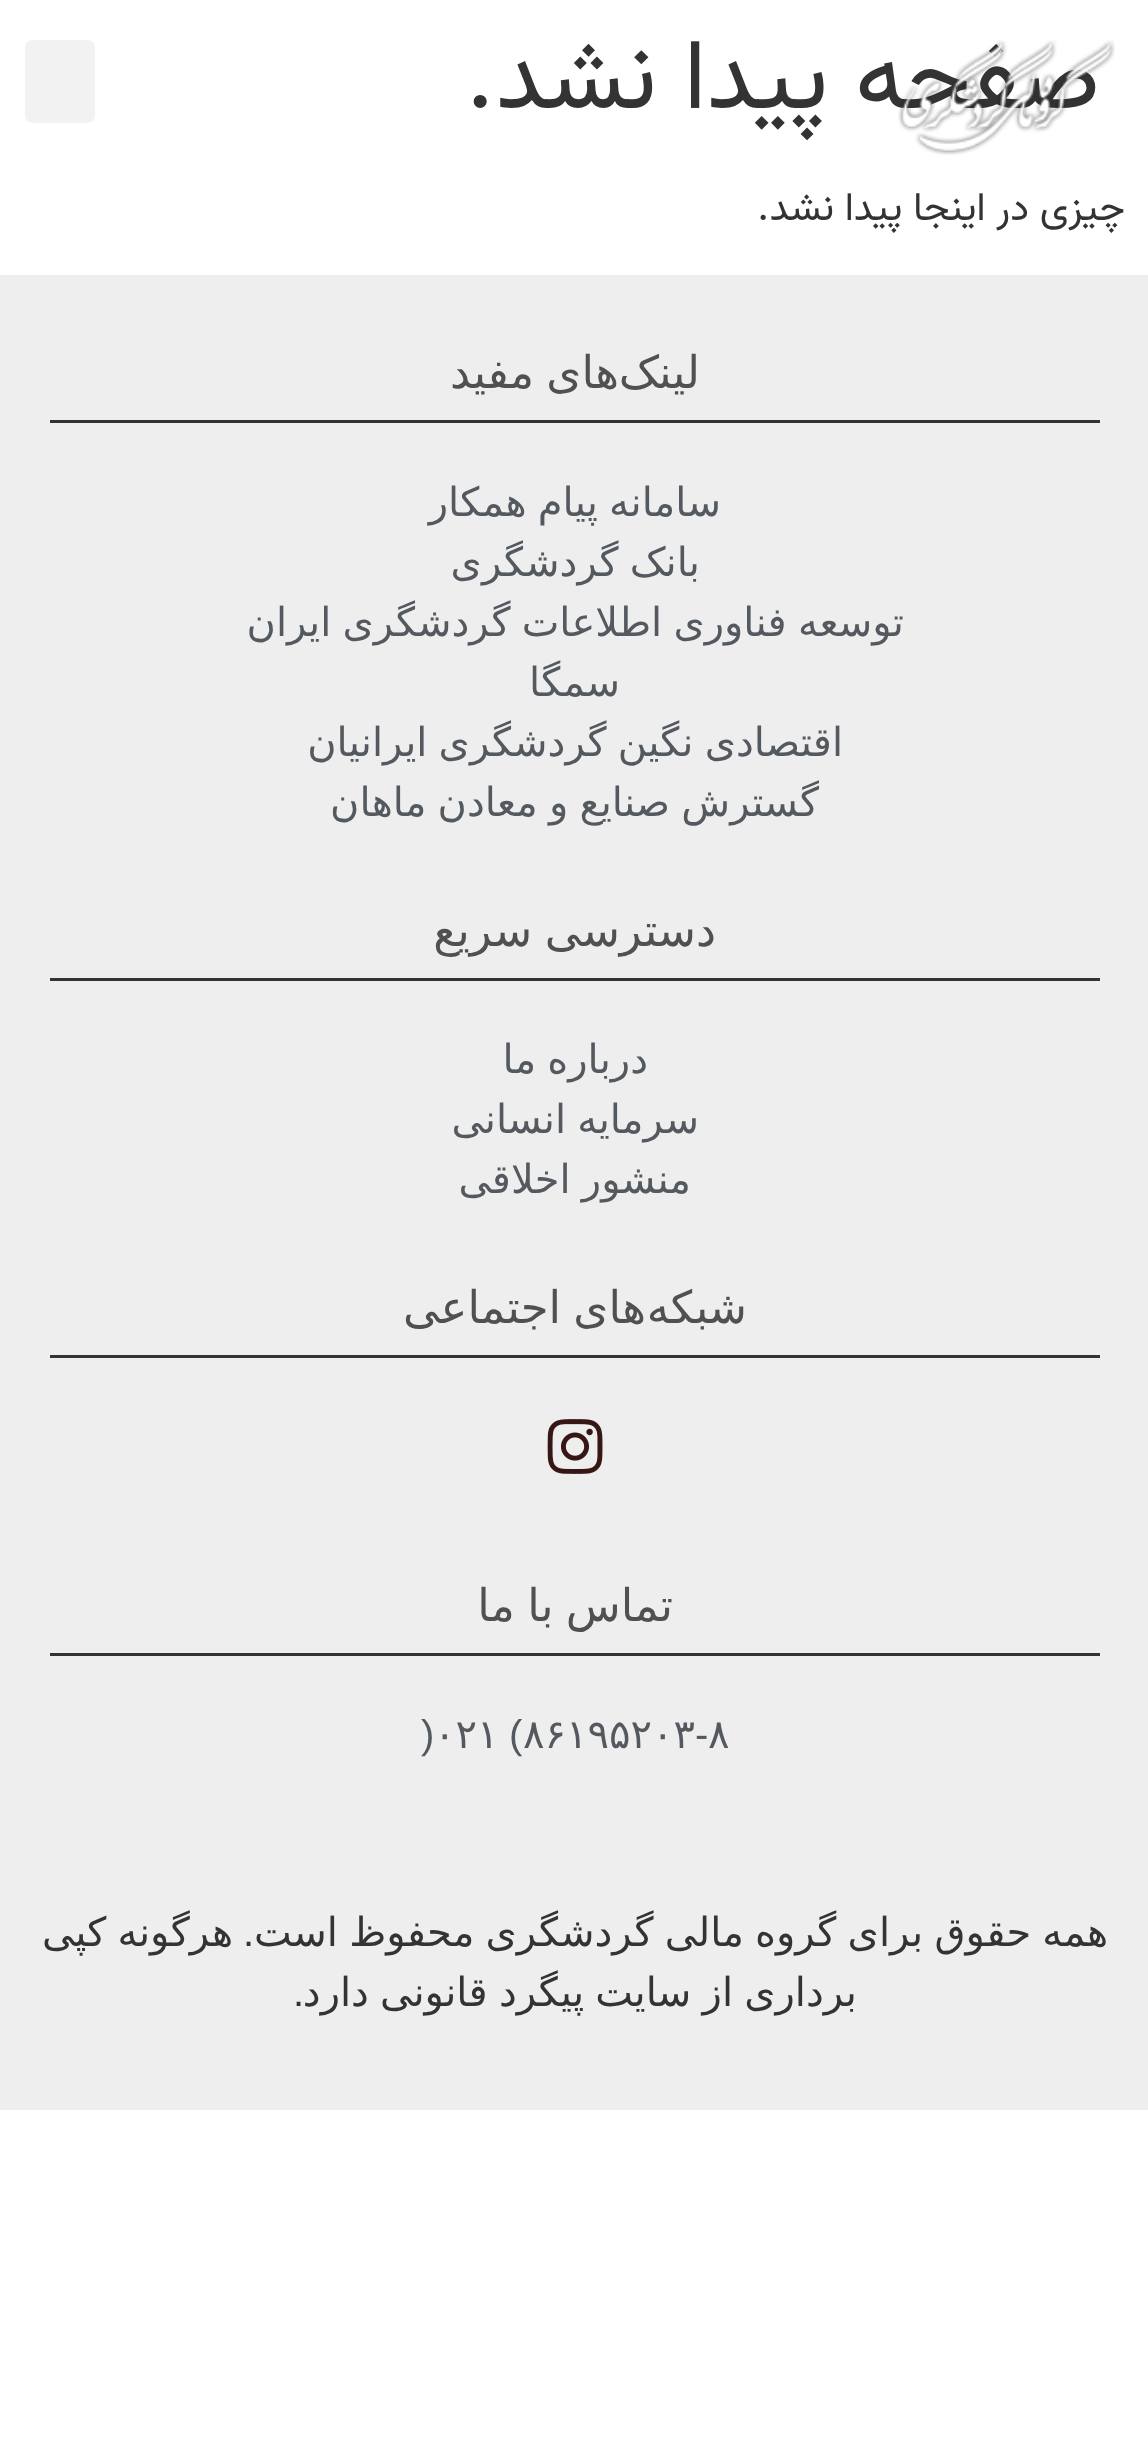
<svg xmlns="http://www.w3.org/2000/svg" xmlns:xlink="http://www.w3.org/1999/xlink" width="1148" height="2444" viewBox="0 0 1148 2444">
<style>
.cls-1{font:100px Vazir;direction:rtl;fill:#333333}
.cls-2{font:40px Vazir;direction:rtl;fill:#333333}
.cls-3{font:45px DejaVu Sans;direction:rtl;fill:#505050}
.cls-4{font:40px DejaVu Sans;direction:rtl;fill:#54595f}
.cls-5{font:40px DejaVu Sans;fill:#54595f}
.cls-6{font:40px Liberation Sans;fill:#54595f}
.cls-7{font:40px DejaVu Sans;direction:rtl;fill:#333333}
.cls-8{font:40px Liberation Sans;direction:rtl;fill:#333333}
</style>
<rect width="100%" height="100%" fill="#ffffff"/>
<rect fill="#f2f2f2" x="25" y="40" width="70" height="83" rx="8"/>
<rect fill="#eeeeee" x="0" y="275" width="1148" height="1835"/>
<rect fill="#333333" x="50" y="420" width="1050" height="3"/>
<rect fill="#333333" x="50" y="978" width="1050" height="3"/>
<rect fill="#333333" x="50" y="1355" width="1050" height="3"/>
<image xlink:href="image1.png" x="547" y="1419" width="56" height="55"/>
<rect fill="#333333" x="50" y="1653" width="1050" height="3"/>
<text class="cls-1" x="1100" y="108">صفحه پیدا نشد.</text>
<image xlink:href="image0.png" x="898" y="40" width="217" height="115"/>
<text class="cls-2" x="1125" y="220">چیزی در اینجا پیدا نشد.</text>
<text class="cls-3" x="700" y="388">لینک</text>
<text class="cls-3" x="619" y="388" word-spacing="-2">های مفید</text>
<text class="cls-4" x="721" y="516" word-spacing="-1.5">سامانه پیام همکار</text>
<text class="cls-4" x="700" y="576" word-spacing="-1.5">بانک گردشگری</text>
<text class="cls-4" x="904" y="636" word-spacing="-1.5">توسعه فناوری اطلاعات گردشگری ایران</text>
<text class="cls-4" x="620" y="696">سمگا</text>
<text class="cls-4" x="843" y="756" word-spacing="-1.5">اقتصادی نگین گردشگری ایرانیان</text>
<text class="cls-4" x="819" y="816" word-spacing="-1.5">گسترش صنایع و معادن ماهان</text>
<text class="cls-3" x="716" y="946" word-spacing="-2">دسترسی سریع</text>
<text class="cls-4" x="648" y="1073" word-spacing="-1.5">درباره ما</text>
<text class="cls-4" x="699" y="1133" word-spacing="-1.5">سرمایه انسانی</text>
<text class="cls-4" x="691" y="1193" word-spacing="-1.5">منشور اخلاقی</text>
<text class="cls-3" x="747" y="1323">شبکه</text>
<text class="cls-3" x="646" y="1323" word-spacing="-2">های اجتماعی</text>
<text class="cls-3" x="673" y="1621" word-spacing="-2">تماس با ما</text>
<text class="cls-5" x="708" y="1748">۸</text>
<text class="cls-6" x="695" y="1748">-</text>
<text class="cls-5" x="523" y="1748">۸۶۱۹۵۲۰۳</text>
<text class="cls-6" x="509" y="1748">(</text>
<text class="cls-5" x="434" y="1748">۰۲۱</text>
<text class="cls-6" x="421" y="1748">)</text>
<text class="cls-7" x="1108" y="1946" word-spacing="-1.5">همه حقوق برای گروه مالی گردشگری محفوظ است</text>
<text class="cls-8" x="254" y="1946">.</text>
<text class="cls-7" x="233" y="1946" word-spacing="-1.5">هرگونه کپی</text>
<text class="cls-7" x="857" y="2006" word-spacing="-1.5">برداری از سایت پیگرد قانونی دارد</text>
<text class="cls-8" x="304" y="2006">.</text>
</svg>
